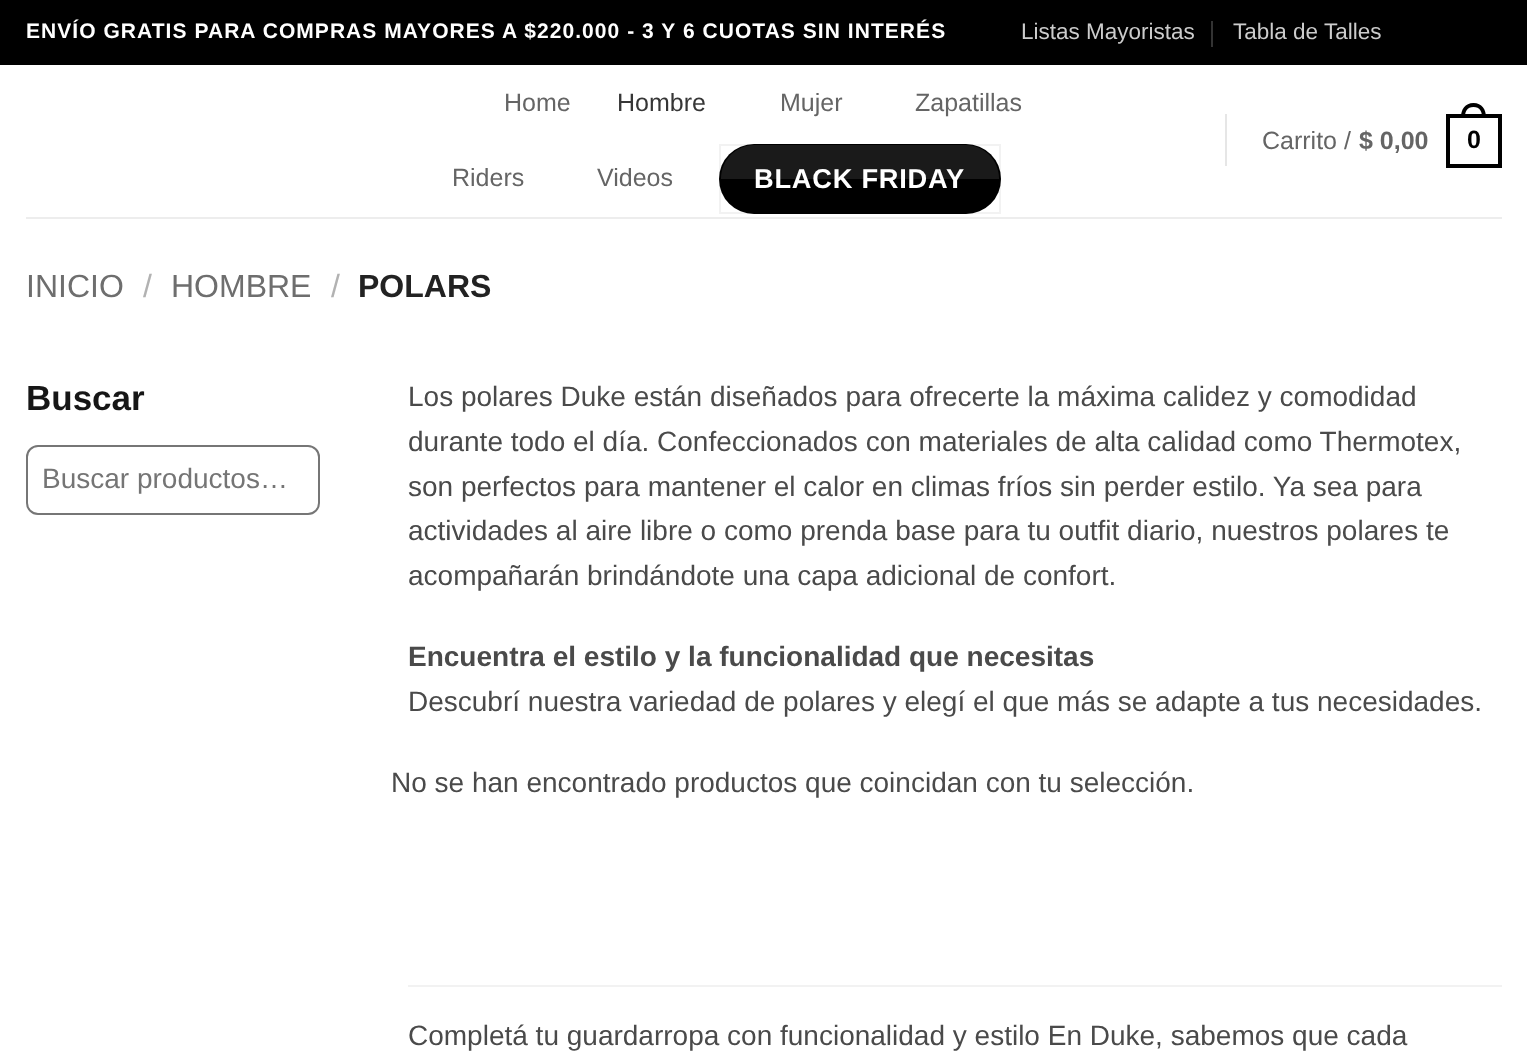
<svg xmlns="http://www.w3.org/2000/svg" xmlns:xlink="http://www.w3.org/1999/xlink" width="1527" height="1052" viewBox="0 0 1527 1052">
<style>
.cls-1{font:bold 21px Liberation Sans;letter-spacing:1.05px;fill:#ffffff}
.cls-2{font:22.5px Liberation Sans;fill:#cccccc}
.cls-3{font:25px Liberation Sans;fill:#656565}
.cls-4{font:25px Liberation Sans;fill:#363636}
.cls-5{font:bold 27.25px Liberation Sans;letter-spacing:0.75px;fill:#ffffff}
.cls-6{font:bold 25px Liberation Sans;fill:#656565}
.cls-7{font:bold 25px Liberation Sans;fill:#000000}
.cls-8{font:32px Liberation Sans;fill:#6e6e6e}
.cls-9{font:32px Liberation Sans;fill:#b2b2b2}
.cls-10{font:bold 32px Liberation Sans;fill:#222222}
.cls-11{font:bold 35px Liberation Sans;fill:#161616}
.cls-12{font:28px Liberation Sans;fill:#757575}
.cls-13{font:28px Liberation Sans;fill:#4a4a4a}
.cls-14{font:bold 28px Liberation Sans;fill:#4a4a4a}
</style>
<rect width="100%" height="100%" fill="#ffffff"/>
<rect fill="#000000" x="0" y="0" width="1527" height="65"/>
<rect fill="#333333" x="1211" y="21" width="2" height="26"/>
<rect fill="#000000" x="719" y="144" width="282" height="70" rx="35"/>
<rect fill="none" stroke="#000000" stroke-opacity="0.05" stroke-width="2" x="720" y="145" width="280" height="68"/>
<path fill="#ffffff" fill-opacity="0.1" d="M754.5 145H965.5C984 145 999 160 999 178.5V179H721V178.5C721 160 736 145 754.5 145Z"/>
<rect fill="#e6e6e6" x="1225" y="114" width="2" height="52"/>
<rect fill="none" stroke="#000000" stroke-width="4" x="1448" y="116" width="52" height="50"/>
<path fill="#000000" fill-rule="evenodd" d="M1473.5 103C1482 103 1486 109.5 1486 117H1461C1461 109.5 1465 103 1473.5 103ZM1473.5 107C1480 107 1482 111.5 1482 117H1465C1465 111.5 1467 107 1473.5 107Z"/>
<rect fill="#ededed" x="26" y="217" width="1476" height="2"/>
<rect fill="none" stroke="#767676" stroke-width="2" x="27" y="446" width="292" height="68" rx="11"/>
<rect fill="#f2f2f2" x="408" y="985" width="1094" height="2"/>
<text class="cls-1" x="26" y="38">ENVÍO GRATIS PARA COMPRAS MAYORES A $220.000 - 3 Y 6 CUOTAS SIN INTERÉS</text>
<text class="cls-2" x="1021" y="39">Listas Mayoristas</text>
<text class="cls-2" x="1233" y="39">Tabla de Talles</text>
<text class="cls-3" x="504" y="111">Home</text>
<text class="cls-4" x="617" y="111">Hombre</text>
<text class="cls-3" x="780" y="111">Mujer</text>
<text class="cls-3" x="915" y="111">Zapatillas</text>
<text class="cls-3" x="452" y="186">Riders</text>
<text class="cls-3" x="597" y="186">Videos</text>
<text class="cls-5" x="754" y="188">BLACK FRIDAY</text>
<text class="cls-3" x="1262" y="149">Carrito /</text>
<text class="cls-6" x="1359" y="149">$ 0,00</text>
<text class="cls-7" x="1467" y="148">0</text>
<text class="cls-8" x="26" y="297">INICIO</text>
<text class="cls-9" x="143" y="297">/</text>
<text class="cls-8" x="171" y="297">HOMBRE</text>
<text class="cls-9" x="331" y="297">/</text>
<text class="cls-10" x="358" y="297">POLARS</text>
<text class="cls-11" x="26" y="410">Buscar</text>
<text class="cls-12" x="42" y="488">Buscar productos…</text>
<text class="cls-13"><tspan x="408" y="406">Los polares Duke están diseñados para ofrecerte la máxima calidez y comodidad</tspan><tspan x="408" y="451">durante todo el día. Confeccionados con materiales de alta calidad como Thermotex,</tspan><tspan x="408" y="496">son perfectos para mantener el calor en climas fríos sin perder estilo. Ya sea para</tspan><tspan x="408" y="540">actividades al aire libre o como prenda base para tu outfit diario, nuestros polares te</tspan><tspan x="408" y="585">acompañarán brindándote una capa adicional de confort.</tspan></text>
<text class="cls-14" x="408" y="666">Encuentra el estilo y la funcionalidad que necesitas</text>
<text class="cls-13" x="408" y="711">Descubrí nuestra variedad de polares y elegí el que más se adapte a tus necesidades.</text>
<text class="cls-13" x="391" y="792">No se han encontrado productos que coincidan con tu selección.</text>
<text class="cls-13" x="408" y="1045">Completá tu guardarropa con funcionalidad y estilo En Duke, sabemos que cada</text>
</svg>
